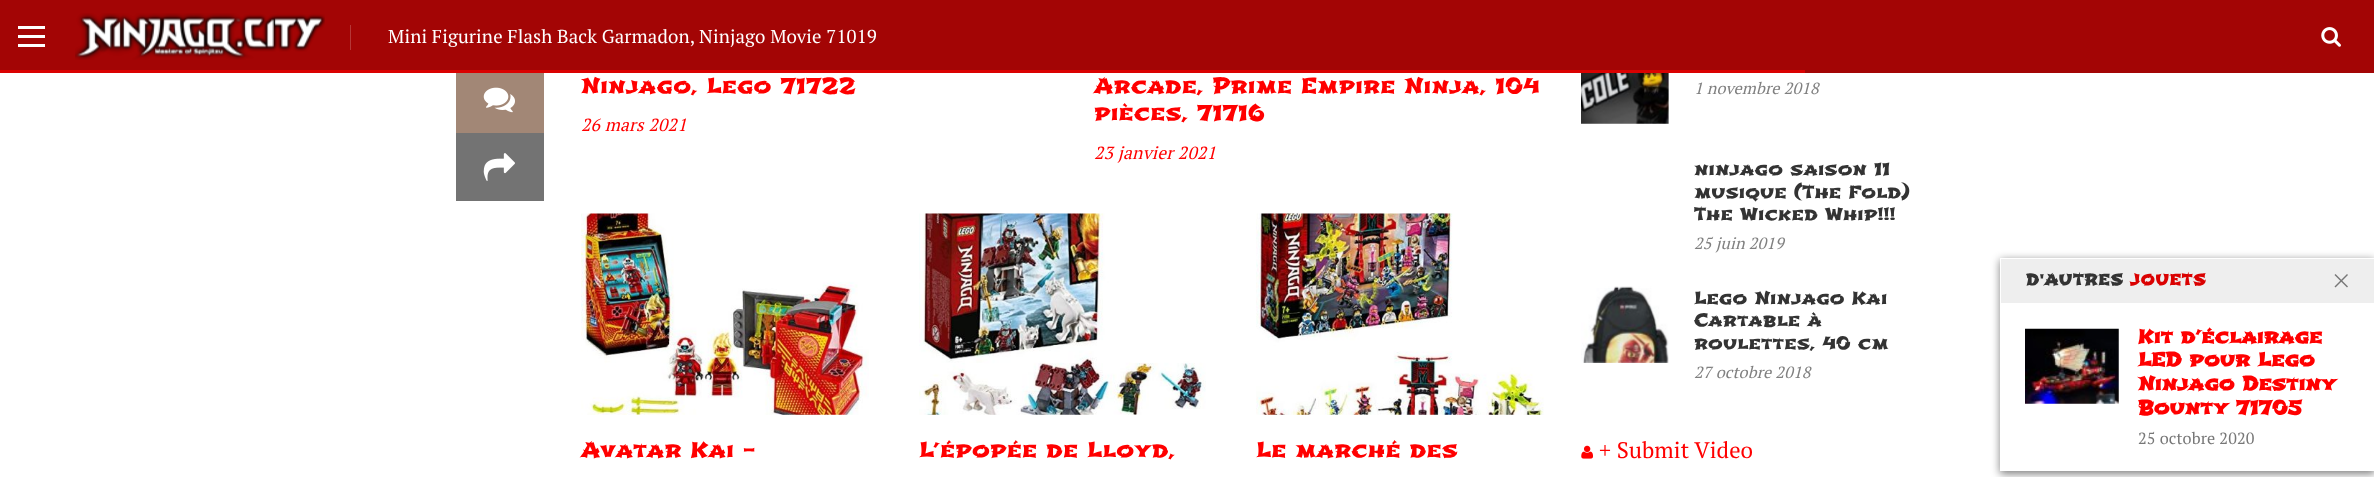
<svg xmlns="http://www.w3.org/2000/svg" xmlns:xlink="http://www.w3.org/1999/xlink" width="2374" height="477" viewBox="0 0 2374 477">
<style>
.cls-1{font:18.75px PT Serif;letter-spacing:0.12px;fill:#ffffff}
.cls-2{font:21.25px Shojumaru;letter-spacing:0.25px;fill:#ff0000}
.cls-3{font:italic 17.5px PT Serif;letter-spacing:0.25px;fill:#ff0000}
.cls-4{font:italic 16.25px PT Serif;letter-spacing:0.12px;fill:#808080}
.cls-5{font:17.5px Shojumaru;letter-spacing:0.12px;fill:#333333}
.cls-6{font:22.5px PT Serif;letter-spacing:0.12px;fill:#ff0000}
.cls-7{font:bold 15px Shojumaru;letter-spacing:1px;fill:#333333}
.cls-8{font:bold 15px Shojumaru;letter-spacing:1px;fill:#da0101}
.cls-9{font:bold 18.75px Shojumaru;letter-spacing:0.12px;fill:#ff0000}
.cls-10{font:16.25px PT Serif;letter-spacing:0.12px;fill:#777777}
</style>
<rect width="100%" height="100%" fill="#ffffff"/>
<rect fill="#a30505" x="0" y="0" width="2374" height="73"/>
<rect fill="#ffffff" x="18" y="26" width="27" height="3"/>
<rect fill="#ffffff" x="18" y="35" width="27" height="3"/>
<rect fill="#ffffff" x="18" y="44" width="27" height="3"/>
<image xlink:href="image0.png" x="75" y="13" width="250" height="47"/>
<rect fill="#b53737" x="350" y="25" width="1" height="25"/>
<image xlink:href="image1.png" x="2321" y="27" width="20" height="20"/>
<rect fill="#da0101" x="0" y="70" width="1805" height="3"/>
<rect fill="#a28776" x="456" y="73" width="88" height="60"/>
<image xlink:href="image2.png" x="483" y="87" width="32" height="26"/>
<rect fill="#737373" x="456" y="133" width="88" height="68"/>
<image xlink:href="image3.png" x="483" y="153" width="32" height="28"/>
<image xlink:href="image4.png" x="581" y="213" width="288" height="202"/>
<image xlink:href="image5.png" x="919" y="213" width="287" height="202"/>
<image xlink:href="image6.png" x="1256" y="213" width="288" height="202"/>
<image xlink:href="image7.png" x="1581" y="73" width="88" height="51"/>
<image xlink:href="image8.png" x="1581" y="286" width="88" height="77"/>
<image xlink:href="image9.png" x="1581" y="445" width="12" height="14"/>
<rect fill="#000000" fill-opacity="0.5" filter="blur(4px)" x="2000" y="260" width="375" height="214"/>
<rect fill="#ffffff" x="2000" y="258" width="374" height="213"/>
<rect fill="#eeeeee" x="2001" y="259" width="373" height="44"/>
<image xlink:href="image10.png" x="2025" y="328" width="94" height="76"/>
<path fill="#777777" d="M2335.5 274L2348 286.5L2347 287.5L2334.5 275Z"/>
<path fill="#777777" d="M2334.5 286.5L2347 274L2348 275L2335.5 287.5Z"/>
<text class="cls-1" x="388" y="43">Mini Figurine Flash Back Garmadon, Ninjago Movie 71019</text>
<text class="cls-2" x="581" y="93">Ninjago, Lego 71722</text>
<text class="cls-3" x="581" y="131">26 mars 2021</text>
<text class="cls-2"><tspan x="1094" y="93">Arcade, Prime Empire Ninja, 104</tspan><tspan x="1094" y="120">pièces, 71716</tspan></text>
<text class="cls-3" x="1094" y="159">23 janvier 2021</text>
<text class="cls-2" x="581" y="457">Avatar Kai –</text>
<text class="cls-2" x="919" y="457">L’épopée de Lloyd,</text>
<text class="cls-2" x="1256" y="457">Le marché des</text>
<text class="cls-4" x="1694" y="94">1 novembre 2018</text>
<text class="cls-5"><tspan x="1694" y="175">ninjago saison 11</tspan><tspan x="1694" y="198">musique (The Fold)</tspan><tspan x="1694" y="220">The Wicked Whip!!!</tspan></text>
<text class="cls-4" x="1694" y="249">25 juin 2019</text>
<text class="cls-5"><tspan x="1694" y="304">Lego Ninjago Kai</tspan><tspan x="1694" y="326">Cartable à</tspan><tspan x="1694" y="349">roulettes, 40 cm</tspan></text>
<text class="cls-4" x="1694" y="378">27 octobre 2018</text>
<text class="cls-6" x="1599" y="458">+ Submit Video</text>
<text class="cls-7" x="2026" y="285">D'AUTRES</text>
<text class="cls-8" x="2130" y="285">JOUETS</text>
<text class="cls-9"><tspan x="2138" y="343">Kit d’éclairage</tspan><tspan x="2138" y="366">LED pour Lego</tspan><tspan x="2138" y="390">Ninjago Destiny</tspan><tspan x="2138" y="414">Bounty 71705</tspan></text>
<text class="cls-10" x="2138" y="444">25 octobre 2020</text>
</svg>
